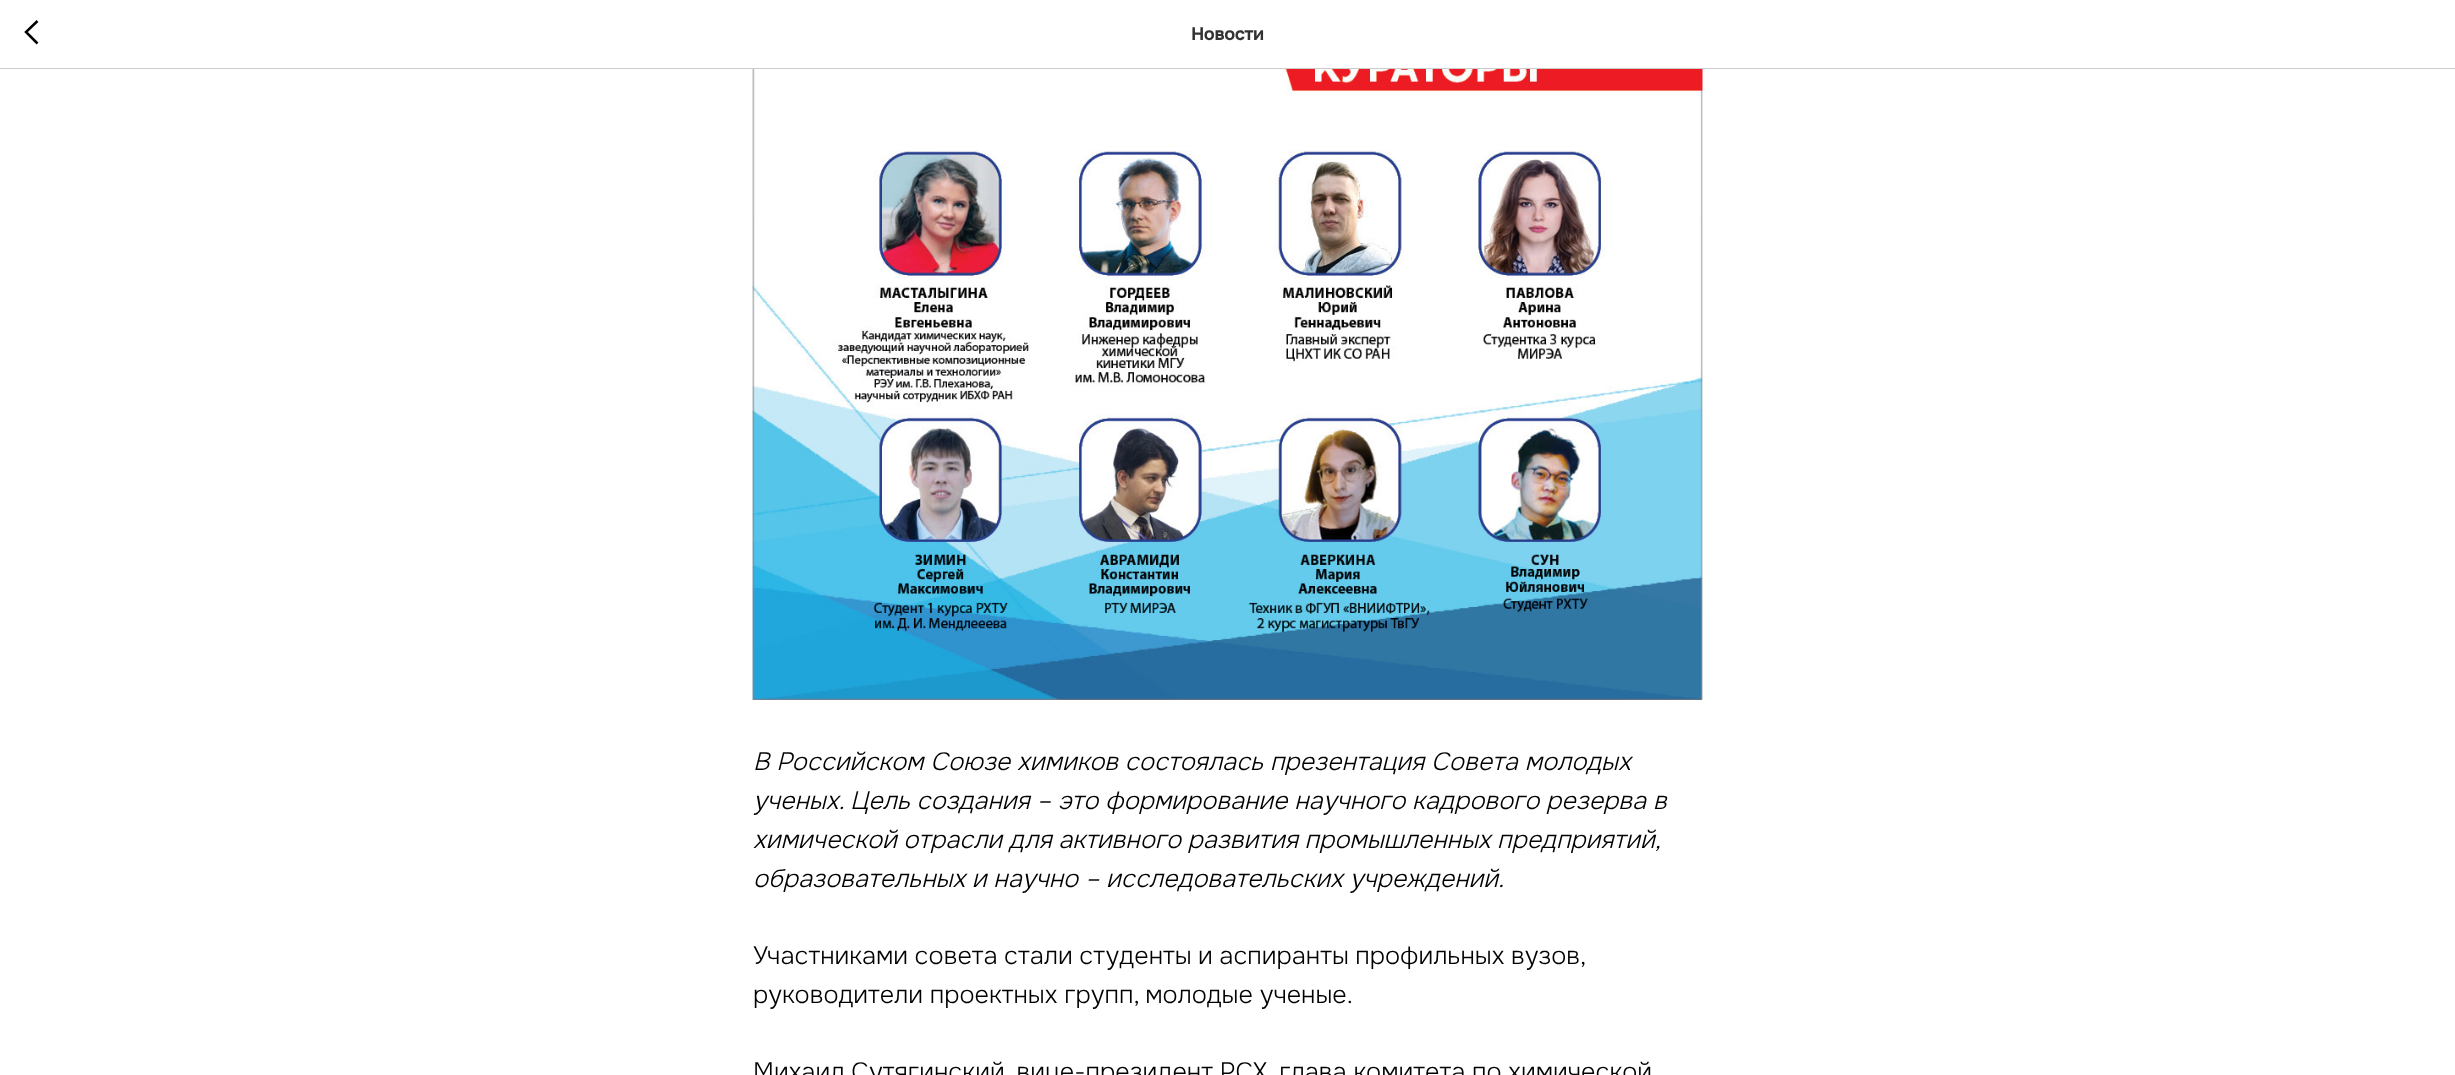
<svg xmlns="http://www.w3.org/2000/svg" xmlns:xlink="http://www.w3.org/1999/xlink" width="2455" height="1075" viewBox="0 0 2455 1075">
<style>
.cls-1{font:bold 17.5px Onest;fill:#333333}
.cls-2{font:italic 300 25px Onest;fill:#000000}
.cls-3{font:300 25px Onest;fill:#000000}
</style>
<rect width="100%" height="100%" fill="#ffffff"/>
<rect fill="#cccccc" x="0" y="68" width="2455" height="1"/>
<path fill="none" stroke="#000000" stroke-width="2.5" d="M37.5 43.5L26 32L37.5 21"/>
<image xlink:href="image0.png" x="752" y="69" width="951" height="631"/>
<text class="cls-1" x="1191" y="40">Новости</text>
<text class="cls-2"><tspan x="753" y="770">В Российском Союзе химиков состоялась презентация Совета молодых</tspan><tspan x="753" y="809">ученых. Цель создания – это формирование научного кадрового резерва в</tspan><tspan x="753" y="848" word-spacing="-0.25">химической отрасли для активного развития промышленных предприятий,</tspan><tspan x="753" y="887">образовательных и научно – исследовательских учреждений.</tspan></text>
<text class="cls-3"><tspan x="753" y="964" word-spacing="-0.25">Участниками совета стали студенты и аспиранты профильных вузов,</tspan><tspan x="753" y="1003">руководители проектных групп, молодые ученые.</tspan></text>
<text class="cls-3" x="753" y="1080">Михаил Сутягинский, вице-президент РСХ, глава комитета по химической</text>
</svg>
